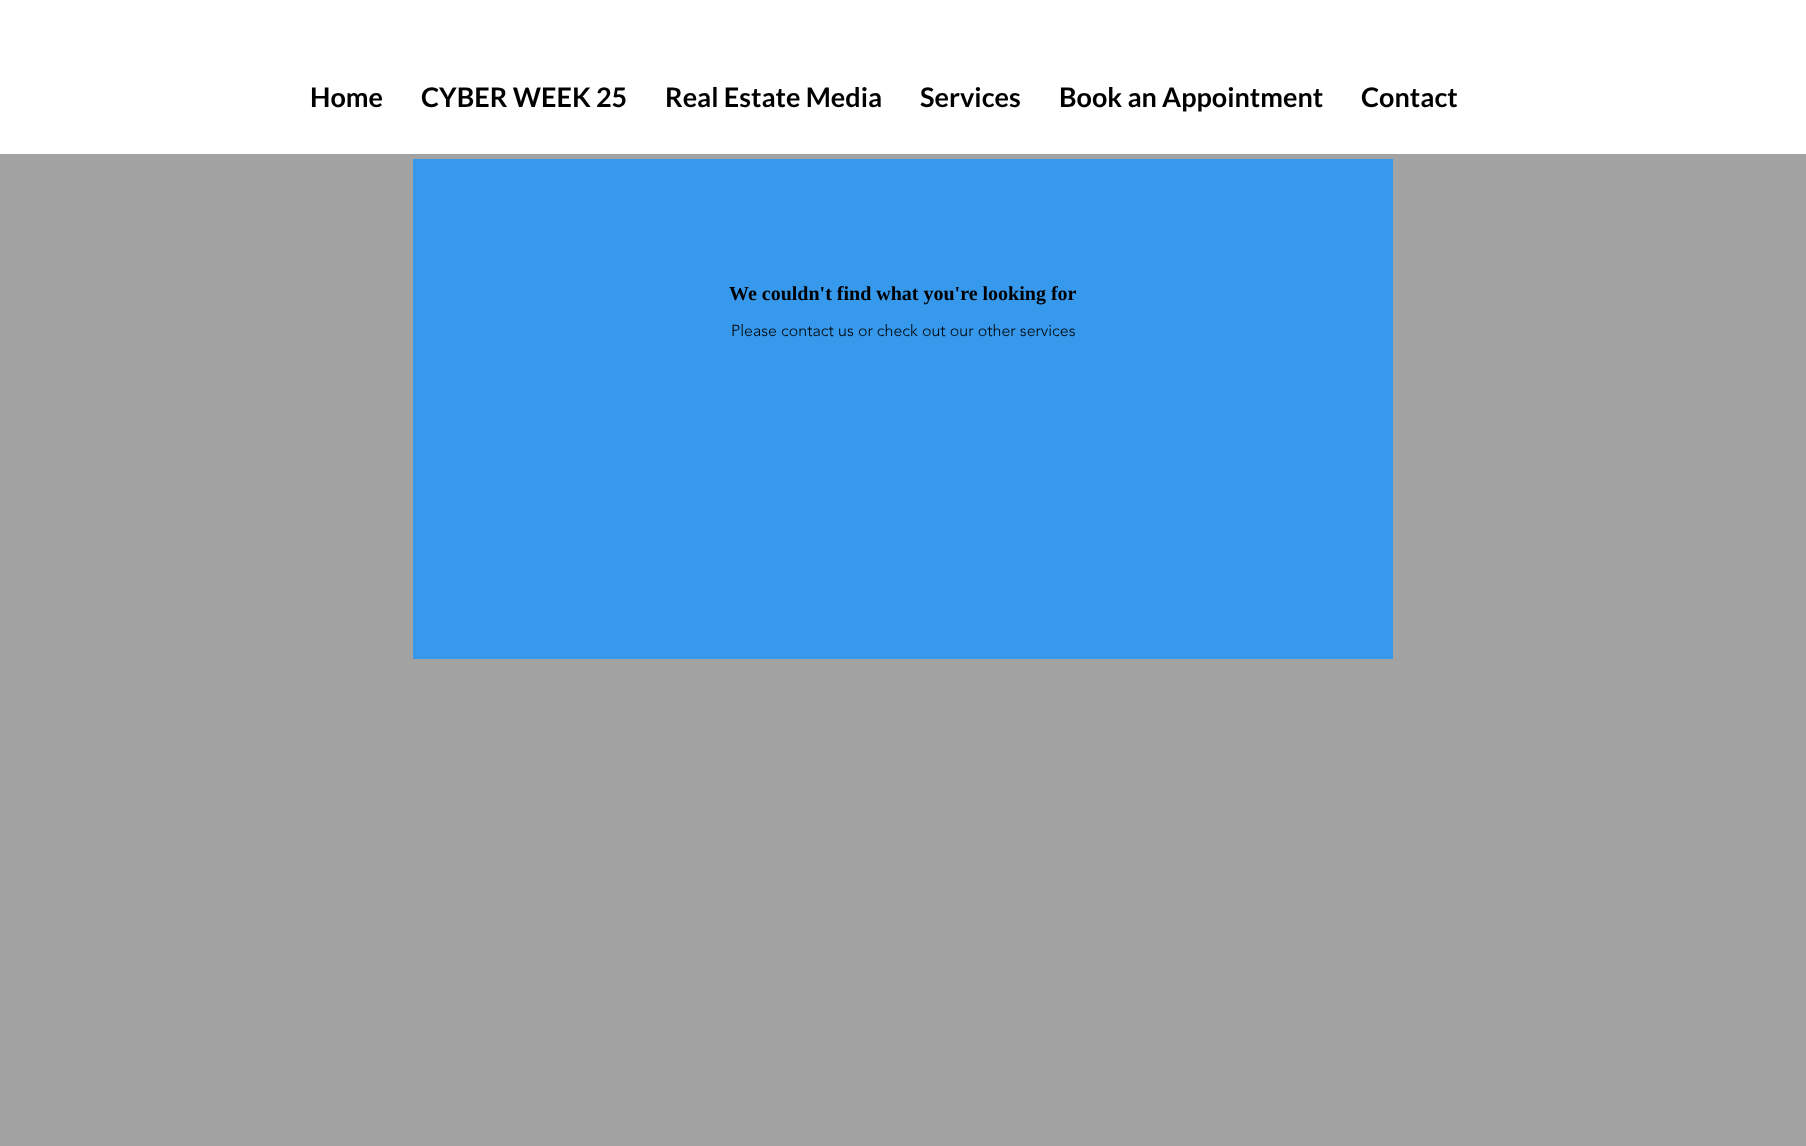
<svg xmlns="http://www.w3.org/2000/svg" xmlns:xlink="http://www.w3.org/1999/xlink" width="1806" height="1146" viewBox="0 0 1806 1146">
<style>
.cls-1{font:bold 27px Lato;fill:#000000}
.cls-2{font:bold 20px Liberation Serif;fill:#000000}
.cls-3{font:300 16px 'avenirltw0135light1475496';fill:#000000}
</style>
<rect width="100%" height="100%" fill="#a3a3a3"/>
<rect fill="#ffffff" x="0" y="0" width="1806" height="154"/>
<rect fill="#3699ec" x="413" y="159" width="980" height="500"/>
<text class="cls-1" x="310" y="107">Home</text>
<text class="cls-1" x="421" y="107">CYBER WEEK 25</text>
<text class="cls-1" x="665" y="107">Real Estate Media</text>
<text class="cls-1" x="920" y="107">Services</text>
<text class="cls-1" x="1059" y="107">Book an Appointment</text>
<text class="cls-1" x="1361" y="107">Contact</text>
<text class="cls-2" x="729" y="300">We couldn't find what you're looking for</text>
<text class="cls-3" x="731" y="336">Please contact us or check out our other services</text>
</svg>
